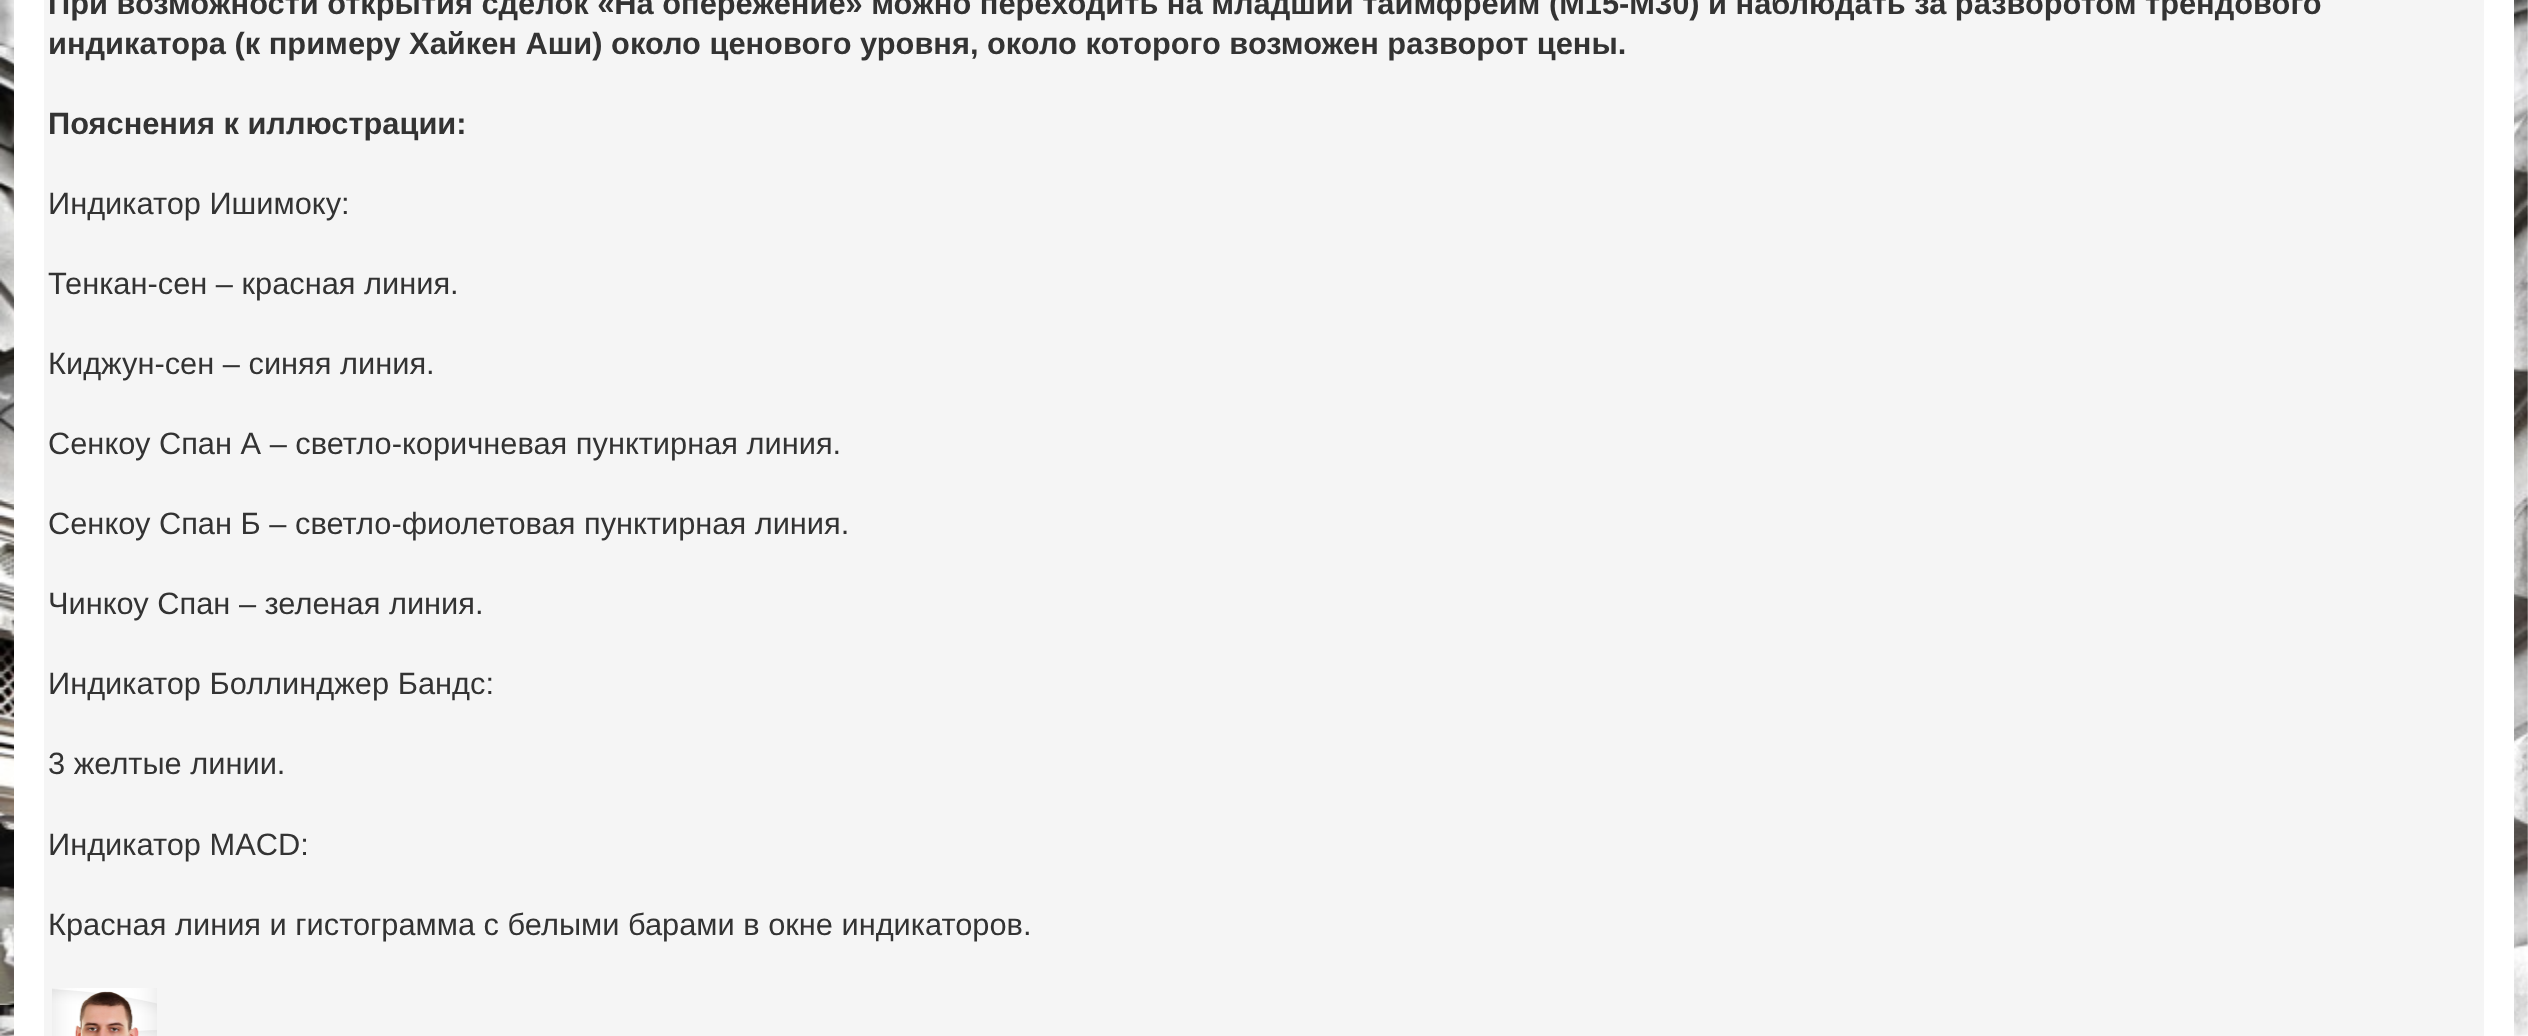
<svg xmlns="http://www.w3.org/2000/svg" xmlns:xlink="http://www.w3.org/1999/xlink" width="2528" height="1036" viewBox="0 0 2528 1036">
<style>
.cls-1{font:bold 30.8px Liberation Sans;fill:#333333}
.cls-2{font:30.8px Liberation Sans;fill:#333333}
</style>
<rect width="100%" height="100%" fill="#ffffff"/>
<image xlink:href="image0.png" x="0" y="0" width="2528" height="1036"/>
<rect fill="#ffffff" x="14" y="0" width="2500" height="1036"/>
<rect fill="#f5f5f5" x="44" y="0" width="2440" height="1036"/>
<image xlink:href="image1.png" x="52" y="988" width="105" height="48"/>
<text class="cls-1"><tspan x="48" y="14">При возможности открытия сделок «На опережение» можно переходить на младший таймфрейм (M15-M30) и наблюдать за разворотом трендового</tspan><tspan x="48" y="54">индикатора (к примеру Хайкен Аши) около ценового уровня, около которого возможен разворот цены.</tspan></text>
<text class="cls-1" x="48" y="134">Пояснения к иллюстрации:</text>
<text class="cls-2" x="48" y="214">Индикатор Ишимоку:</text>
<text class="cls-2" x="48" y="294">Тенкан-сен – красная линия.</text>
<text class="cls-2" x="48" y="374">Киджун-сен – синяя линия.</text>
<text class="cls-2" x="48" y="454">Сенкоу Спан А – светло-коричневая пунктирная линия.</text>
<text class="cls-2" x="48" y="534">Сенкоу Спан Б – светло-фиолетовая пунктирная линия.</text>
<text class="cls-2" x="48" y="614">Чинкоу Спан – зеленая линия.</text>
<text class="cls-2" x="48" y="694">Индикатор Боллинджер Бандс:</text>
<text class="cls-2" x="48" y="774">3 желтые линии.</text>
<text class="cls-2" x="48" y="855">Индикатор MACD:</text>
<text class="cls-2" x="48" y="935">Красная линия и гистограмма с белыми барами в окне индикаторов.</text>
</svg>
